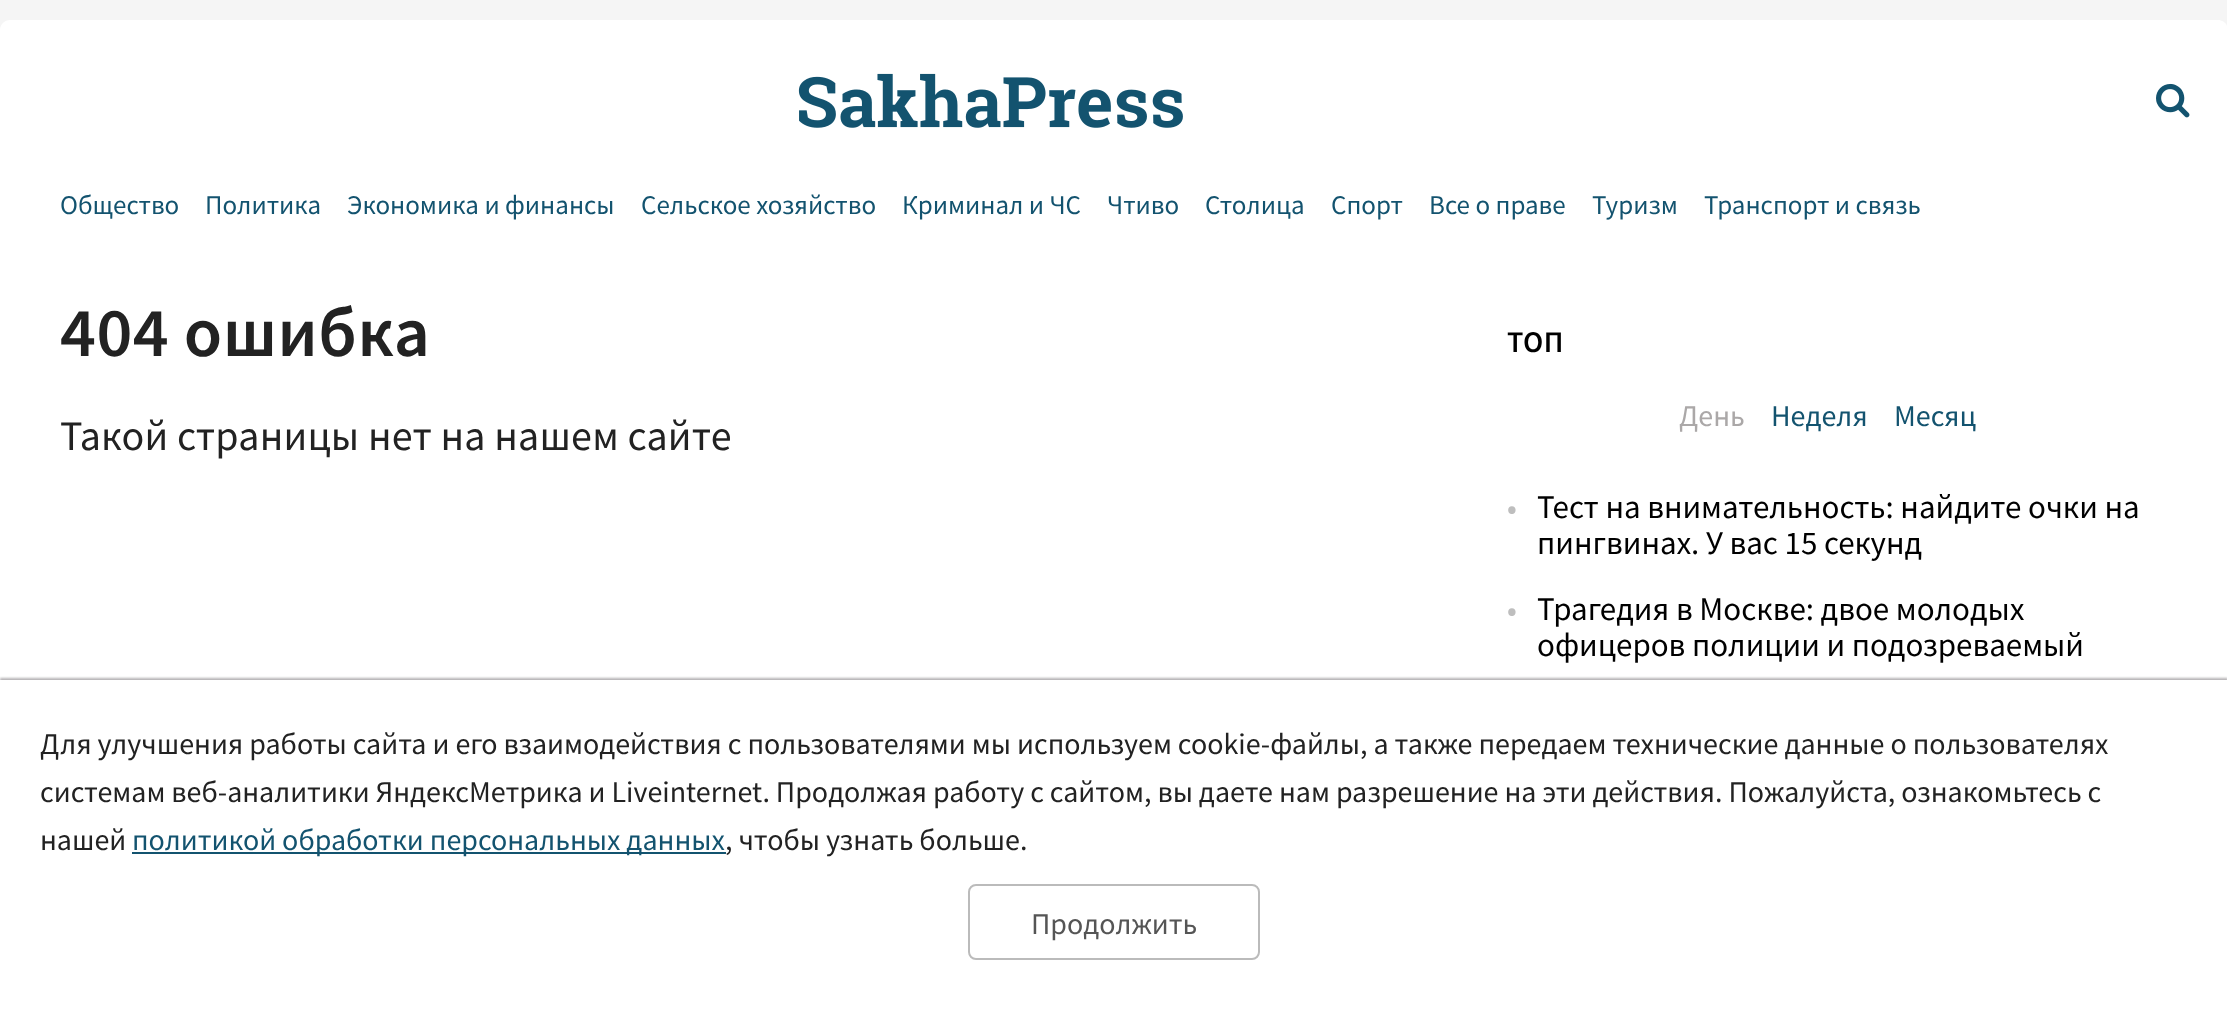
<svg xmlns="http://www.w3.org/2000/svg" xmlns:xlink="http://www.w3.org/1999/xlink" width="2227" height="1019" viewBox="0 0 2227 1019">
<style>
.cls-1{font:27px Source Sans Pro;fill:#13536f}
.cls-2{font:600 70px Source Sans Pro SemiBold;letter-spacing:0.5px;fill:#222222}
.cls-3{font:42px Source Sans Pro;letter-spacing:0.2px;fill:#222222}
.cls-4{font:600 30px Source Sans Pro SemiBold;letter-spacing:0.5px;fill:#000000}
.cls-5{font:30px Source Sans Pro;fill:#aba8a8}
.cls-6{font:30px Source Sans Pro;fill:#13536f}
.cls-7{font:600 30px Source Sans Pro SemiBold;fill:#bebebe}
.cls-8{font:33px Source Sans Pro;fill:#000000}
.cls-9{font:30px Source Sans Pro;fill:#222222}
.cls-10{font:30px Source Sans Pro;fill:#555555}
</style>
<rect width="100%" height="100%" fill="#f5f5f5"/>
<path fill="#ffffff" d="M10 20H2218C2223.5 20 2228 24.5 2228 30V180H0V30C0 24.5 4.5 20 10 20Z"/>
<image xlink:href="image0.png" x="798" y="73" width="385" height="55"/>
<image xlink:href="image1.png" x="2156" y="83" width="34" height="35"/>
<rect fill="#ffffff" x="0" y="180" width="2227" height="500"/>
<rect fill="#b5b3b5" filter="blur(1px)" x="0" y="678" width="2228" height="340"/>
<rect fill="#ffffff" x="0" y="680" width="2227" height="339"/>
<rect fill="#13536f" x="132" y="852" width="594" height="2"/>
<rect fill="none" stroke="#bbbbbb" stroke-width="2" x="969" y="885" width="290" height="74" rx="7"/>
<text class="cls-1" x="60" y="214">Общество</text>
<text class="cls-1" x="205" y="214">Политика</text>
<text class="cls-1" x="347" y="214">Экономика и финансы</text>
<text class="cls-1" x="641" y="214">Сельское хозяйство</text>
<text class="cls-1" x="902" y="214">Криминал и ЧС</text>
<text class="cls-1" x="1107" y="214">Чтиво</text>
<text class="cls-1" x="1205" y="214">Столица</text>
<text class="cls-1" x="1331" y="214">Спорт</text>
<text class="cls-1" x="1429" y="214">Все о праве</text>
<text class="cls-1" x="1592" y="214">Туризм</text>
<text class="cls-1" x="1704" y="214">Транспорт и связь</text>
<text class="cls-2" x="60" y="356">404 ошибка</text>
<text class="cls-3" x="60" y="450">Такой страницы нет на нашем сайте</text>
<text class="cls-4" x="1507" y="352">ТОП</text>
<text class="cls-5" x="1679" y="426">День</text>
<text class="cls-6" x="1771" y="426">Неделя</text>
<text class="cls-6" x="1894" y="426">Месяц</text>
<text class="cls-7" x="1507" y="518">•</text>
<text class="cls-8"><tspan x="1537" y="518">Тест на внимательность: найдите очки на</tspan><tspan x="1537" y="554">пингвинах. У вас 15 секунд</tspan></text>
<text class="cls-7" x="1507" y="620">•</text>
<text class="cls-8"><tspan x="1537" y="620">Трагедия в Москве: двое молодых</tspan><tspan x="1537" y="656">офицеров полиции и подозреваемый</tspan></text>
<text class="cls-9"><tspan x="40" y="754">Для улучшения работы сайта и его взаимодействия с пользователями мы используем cookie-файлы, а также передаем технические данные о пользователях</tspan><tspan x="40" y="802">системам веб-аналитики ЯндексМетрика и Liveinternet. Продолжая работу с сайтом, вы даете нам разрешение на эти действия. Пожалуйста, ознакомьтесь с</tspan><tspan x="40" y="850">нашей</tspan></text>
<text class="cls-6" x="132" y="850">политикой обработки персональных данных</text>
<text class="cls-9" x="725" y="850">, чтобы узнать больше.</text>
<text class="cls-10" x="1031" y="934">Продолжить</text>
</svg>
